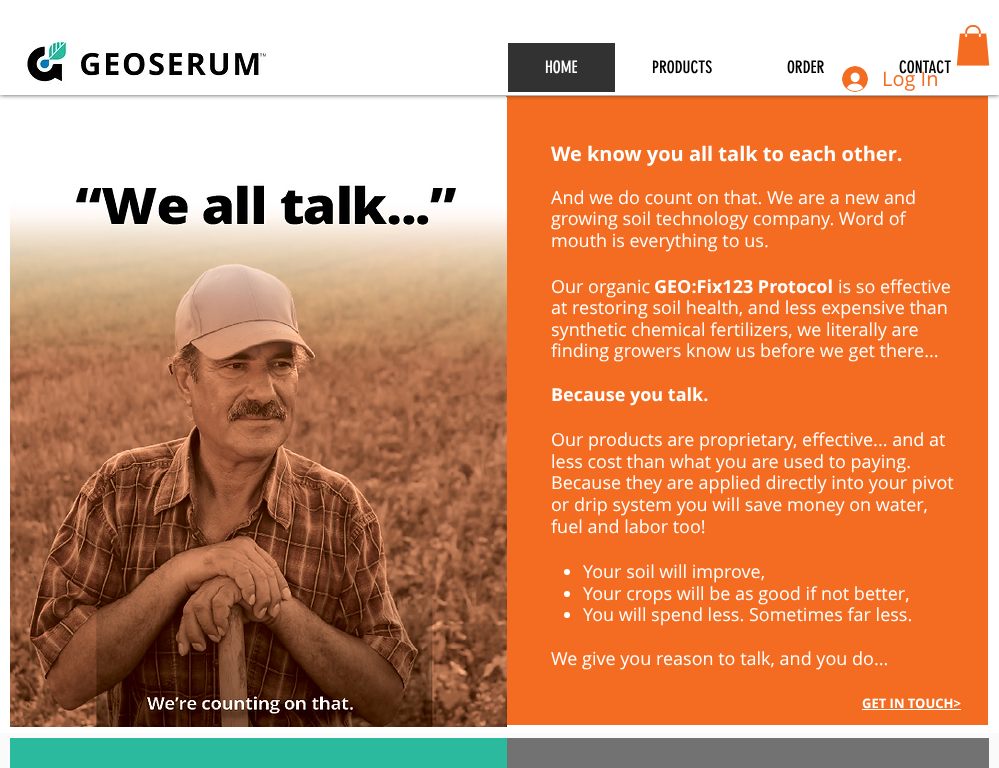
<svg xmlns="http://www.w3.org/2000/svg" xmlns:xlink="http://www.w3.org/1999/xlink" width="999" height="768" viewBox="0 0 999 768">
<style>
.cls-1{font:17px 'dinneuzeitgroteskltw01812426';fill:#ffffff}
.cls-2{font:17px 'dinneuzeitgroteskltw01812426';fill:#000000}
.cls-3{font:20px Open Sans;fill:#f36c21}
.cls-4{font:bold 20px Open Sans;fill:#ffffff}
.cls-5{font:18px Open Sans;fill:#ffffff}
.cls-6{font:bold 18px Open Sans;fill:#ffffff}
.cls-7{font:bold 13px Open Sans;fill:#ffffff}
</style>
<defs>
<clipPath id="clip1"><rect x="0" y="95" width="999" height="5"/></clipPath>
</defs>
<rect width="100%" height="100%" fill="#ffffff"/>
<rect fill="#f36c21" x="506" y="96" width="482" height="629"/>
<image xlink:href="image3.png" x="10" y="97" width="497" height="630"/>
<g clip-path="url(#clip1)">
<rect fill="#000000" fill-opacity="0.7" filter="blur(2.5px)" x="0" y="0" width="999" height="95"/>
</g>
<image xlink:href="image0.png" x="25" y="36" width="241" height="48"/>
<rect fill="#323232" x="508" y="43" width="107" height="49"/>
<image xlink:href="image1.png" x="956" y="25" width="34" height="41"/>
<image xlink:href="image2.png" x="842" y="66" width="26" height="26"/>
<circle fill="#ffffff" cx="567" cy="572" r="3"/>
<circle fill="#ffffff" cx="567" cy="594" r="3"/>
<circle fill="#ffffff" cx="567" cy="615" r="3"/>
<rect fill="#ffffff" x="862" y="709" width="99" height="1"/>
<rect fill="#fafafa" x="0" y="733" width="999" height="35"/>
<rect fill="#2cba9e" x="10" y="738" width="497" height="30"/>
<rect fill="#727272" x="507" y="738" width="482" height="30"/>
<text class="cls-1" x="545" y="73">HOME</text>
<text class="cls-2" x="652" y="73">PRODUCTS</text>
<text class="cls-2" x="787" y="73">ORDER</text>
<text class="cls-2" x="899" y="73">CONTACT</text>
<text class="cls-3" x="882" y="86">Log In</text>
<text class="cls-4" x="551" y="161">We know you all talk to each other.</text>
<text class="cls-5"><tspan x="551" y="204">And we do count on that. We are a new and</tspan><tspan x="551" y="225">growing soil technology company. Word of</tspan><tspan x="551" y="247">mouth is everything to us.</tspan></text>
<text class="cls-5" x="551" y="293">Our organic</text>
<text class="cls-6" x="654" y="293">GEO:Fix123 Protocol</text>
<text class="cls-5" x="838" y="293">is so effective</text>
<text class="cls-5"><tspan x="551" y="314">at restoring soil health, and less expensive than</tspan><tspan x="551" y="336">synthetic chemical fertilizers, we literally are</tspan><tspan x="551" y="357">finding growers know us before we get there...</tspan></text>
<text class="cls-6" x="551" y="401">Because you talk.</text>
<text class="cls-5" x="551" y="446">Ou</text>
<text class="cls-5" x="576" y="446">r products are proprietary</text>
<text class="cls-5" x="793" y="446">, effective... and at</text>
<text class="cls-5"><tspan x="551" y="468">less cost than what you are used to paying.</tspan><tspan x="551" y="489">Because they are applied directly into your pivot</tspan><tspan x="551" y="511">or drip system you will save money on water,</tspan><tspan x="551" y="533">fuel and labor too!</tspan></text>
<text class="cls-5"><tspan x="583" y="578">Your soil will improve,</tspan><tspan x="583" y="600">Your crops will be as good if not better,</tspan><tspan x="583" y="621">You will spend less. Sometimes far less.</tspan></text>
<text class="cls-5" x="551" y="665">We give you reason to talk, and you do...</text>
<text class="cls-7" x="862" y="708">GET IN TOUCH&gt;</text>
</svg>
